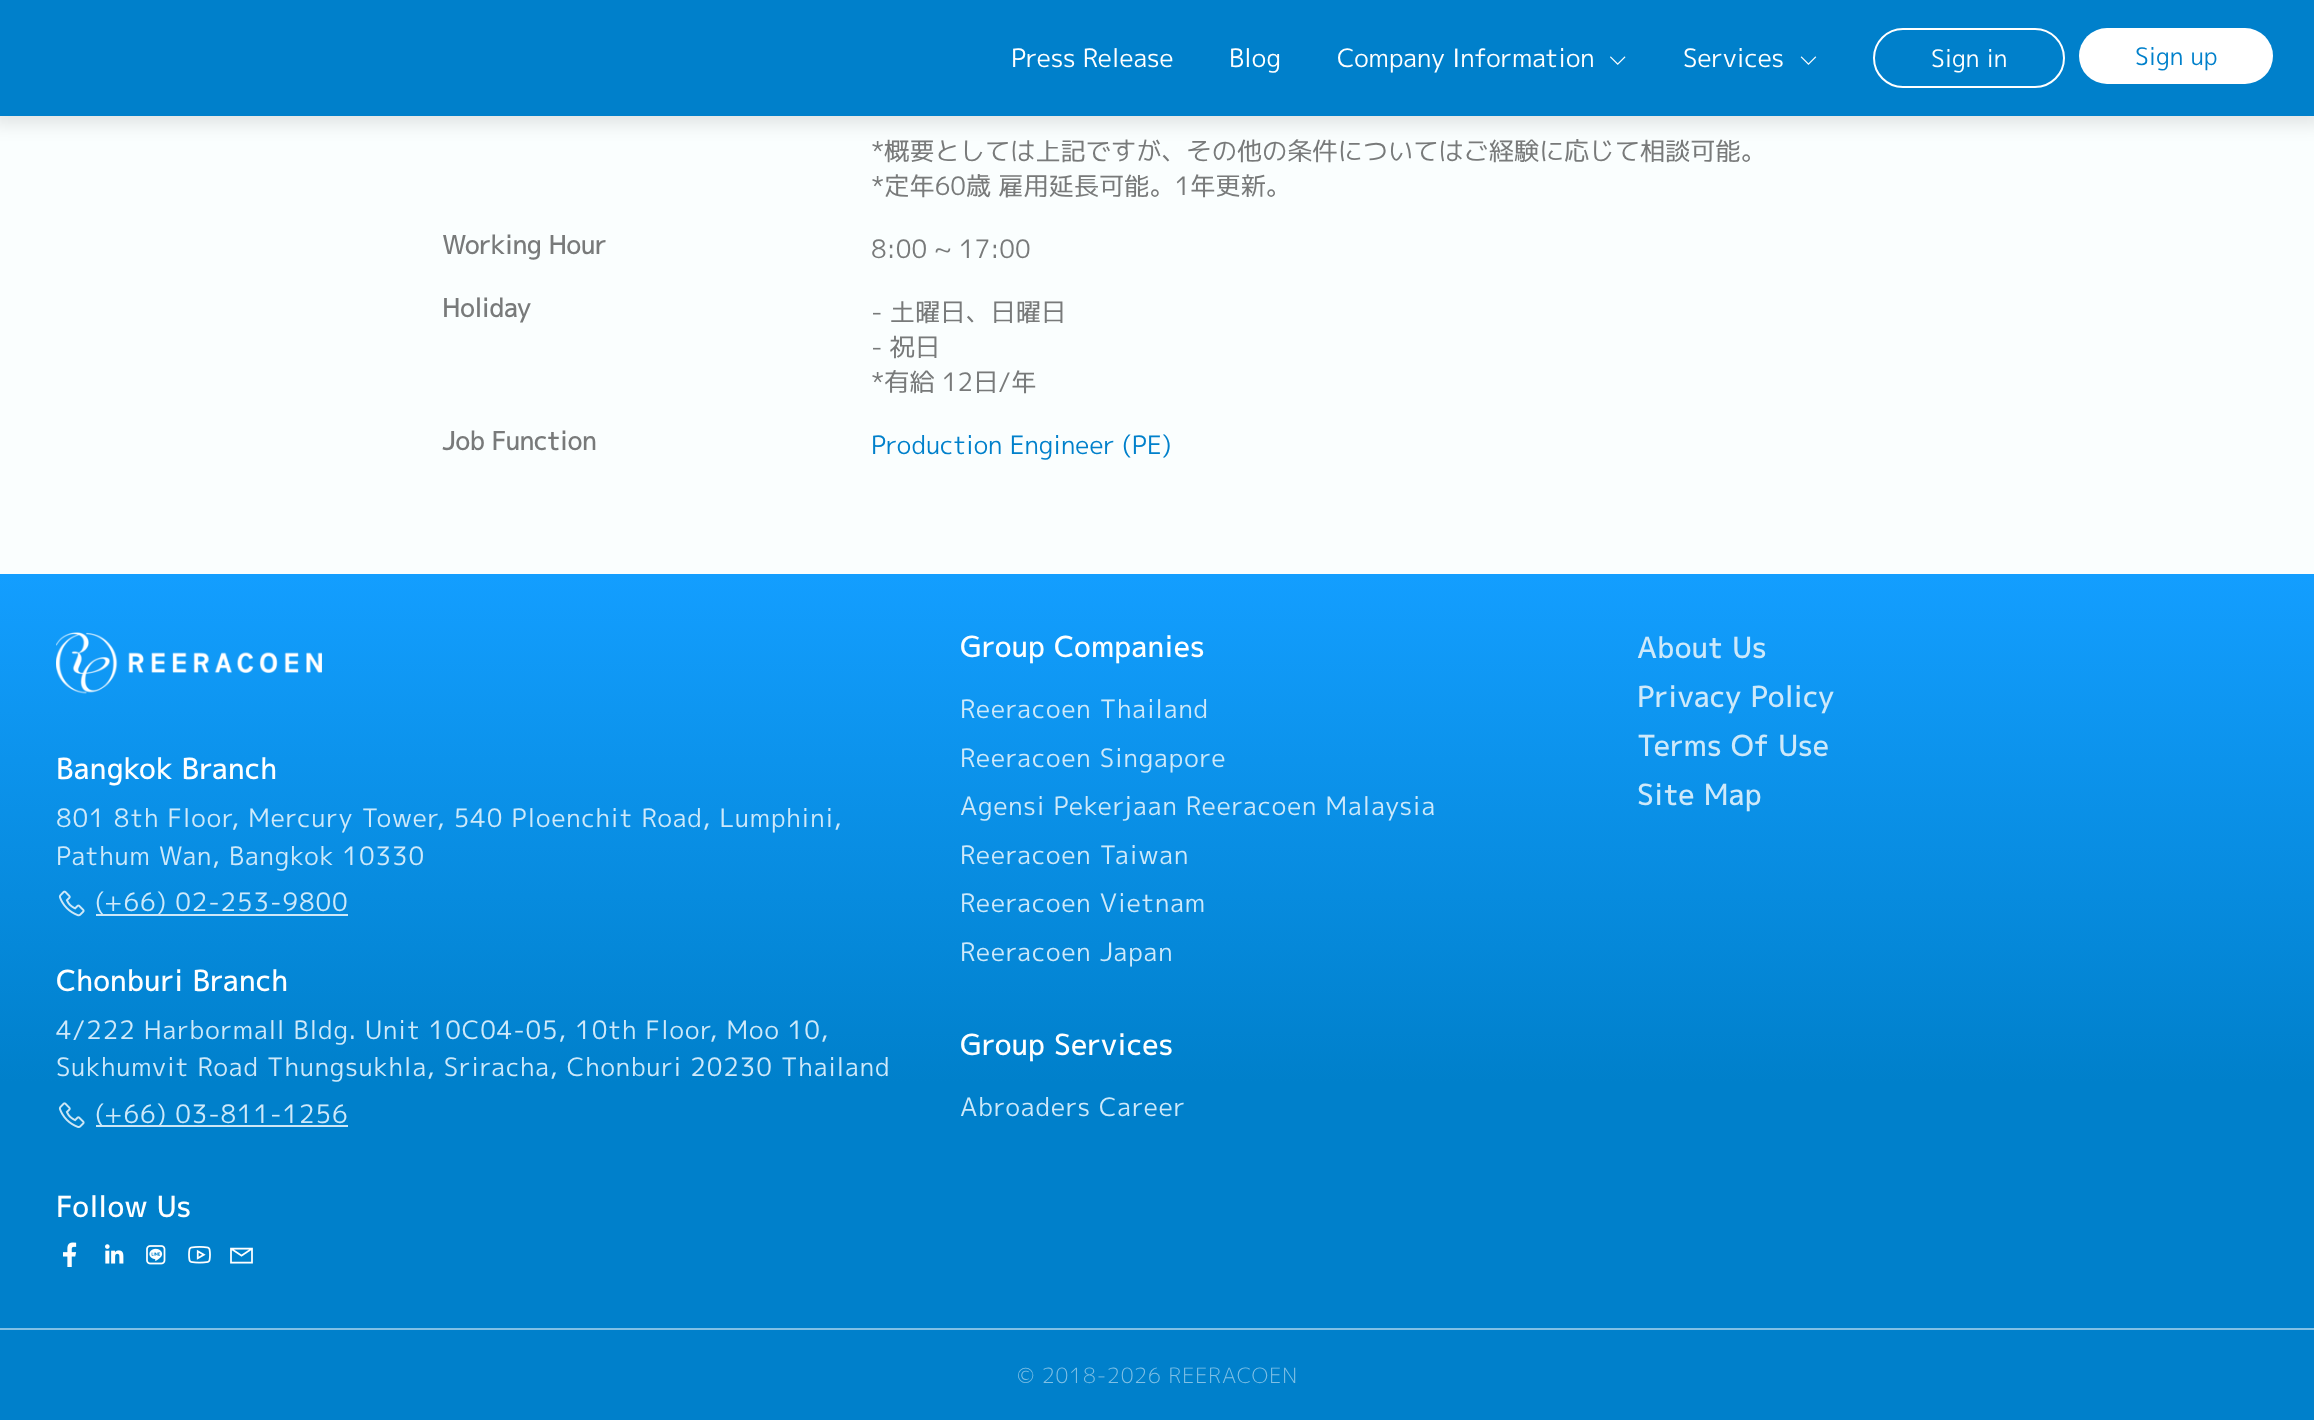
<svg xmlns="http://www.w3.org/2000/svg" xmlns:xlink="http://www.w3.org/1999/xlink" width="2314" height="1420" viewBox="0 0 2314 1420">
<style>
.cls-1{font:25.2px 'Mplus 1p';fill:#ffffff}
.cls-2{font:24px 'Mplus 1p';fill:#ffffff}
.cls-3{font:24px 'Mplus 1p';fill:#0080cb}
.cls-4{font:25.2px 'Mplus 1p';fill:#787a7a}
.cls-5{font:bold 25.2px 'Mplus 1p';fill:#787a7a}
.cls-6{font:25.2px 'Mplus 1p';fill:#0080cb}
.cls-7{font:bold 28px 'Mplus 1p';letter-spacing:0.88px;fill:#ffffff}
.cls-8{font:25.2px 'Mplus 1p';letter-spacing:0.88px;fill:#cee9fa}
.cls-9{font:bold 28px 'Mplus 1p';letter-spacing:0.88px;fill:#cee9fa}
.cls-10{font:300 21px 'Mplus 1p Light';letter-spacing:0.88px;fill:#80c0e5}
</style>
<defs>
<linearGradient id="g1" gradientUnits="userSpaceOnUse" x1="1158" y1="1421" x2="1158" y2="574"><stop offset="0.4" stop-color="#0080cb"/><stop offset="1" stop-color="#139eff"/></linearGradient>
</defs>
<rect width="100%" height="100%" fill="#fafefe"/>
<rect fill="#000000" fill-opacity="0.1" filter="blur(9px)" x="-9" y="-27" width="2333" height="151"/>
<rect fill="#0080cb" x="0" y="0" width="2314" height="116"/>
<image xlink:href="image0.png" x="1610" y="56" width="16" height="9"/>
<image xlink:href="image1.png" x="1800" y="56" width="17" height="9"/>
<rect fill="none" stroke="#ffffff" stroke-width="2" x="1874" y="29" width="190" height="58" rx="29"/>
<rect fill="#ffffff" x="2079" y="28" width="194" height="56" rx="28"/>
<rect fill="url(#g1)" x="0" y="574" width="2314" height="846"/>
<image xlink:href="image2.png" x="56" y="632" width="266" height="62"/>
<image xlink:href="image3.png" x="58" y="890" width="27" height="27"/>
<rect fill="#cde8f8" x="96" y="914" width="252" height="2"/>
<image xlink:href="image4.png" x="58" y="1102" width="27" height="26"/>
<rect fill="#cce6f5" x="96" y="1125" width="252" height="2"/>
<image xlink:href="image5.png" x="63" y="1242" width="14" height="25"/>
<image xlink:href="image6.png" x="105" y="1244" width="19" height="20"/>
<image xlink:href="image7.png" x="146" y="1245" width="20" height="20"/>
<image xlink:href="image8.png" x="188" y="1246" width="23" height="18"/>
<image xlink:href="image9.png" x="230" y="1247" width="23" height="17"/>
<rect fill="#80c0e5" x="0" y="1328" width="2314" height="2"/>
<text class="cls-1" x="1011" y="67">Press Release</text>
<text class="cls-1" x="1229" y="67">Blog</text>
<text class="cls-1" x="1337" y="67">Company Information</text>
<text class="cls-1" x="1683" y="67">Services</text>
<text class="cls-2" x="1931" y="67">Sign in</text>
<text class="cls-3" x="2135" y="65">Sign up</text>
<text class="cls-4"><tspan x="871" y="160">*概要としては上記ですが、その他の条件についてはご経験に応じて相談可能。</tspan><tspan x="871" y="195">*定年60歳 雇用延長可能。1年更新。</tspan></text>
<text class="cls-5" x="442" y="254">Working Hour</text>
<text class="cls-4" x="871" y="258">8:00 ~ 17:00</text>
<text class="cls-5" x="442" y="317">Holiday</text>
<text class="cls-4"><tspan x="871" y="321">- 土曜日、日曜日</tspan><tspan x="871" y="356">- 祝日</tspan><tspan x="871" y="391">*有給 12日/年</tspan></text>
<text class="cls-5" x="442" y="450">Job Function</text>
<text class="cls-6" x="871" y="454">Production Engineer (PE)</text>
<text class="cls-7" x="960" y="657">Group Companies</text>
<text class="cls-8"><tspan x="960" y="718">Reeracoen Thailand</tspan><tspan x="960" y="767">Reeracoen Singapore</tspan><tspan x="960" y="815">Agensi Pekerjaan Reeracoen Malaysia</tspan><tspan x="960" y="864">Reeracoen Taiwan</tspan><tspan x="960" y="912">Reeracoen Vietnam</tspan><tspan x="960" y="961">Reeracoen Japan</tspan></text>
<text class="cls-7" x="960" y="1055">Group Services</text>
<text class="cls-8" x="960" y="1116">Abroaders Career</text>
<text class="cls-9"><tspan x="1637" y="658">About Us</tspan><tspan x="1637" y="707">Privacy Policy</tspan><tspan x="1637" y="756">Terms Of Use</tspan><tspan x="1637" y="805">Site Map</tspan></text>
<text class="cls-7" x="56" y="779">Bangkok Branch</text>
<text class="cls-8"><tspan x="56" y="827">801 8th Floor, Mercury Tower, 540 Ploenchit Road, Lumphini,</tspan><tspan x="56" y="865">Pathum Wan, Bangkok 10330</tspan></text>
<text class="cls-8" x="95" y="911">(+66) 02-253-9800</text>
<text class="cls-7" x="56" y="991">Chonburi Branch</text>
<text class="cls-8"><tspan x="56" y="1039">4/222 Harbormall Bldg. Unit 10C04-05, 10th Floor, Moo 10,</tspan><tspan x="56" y="1076">Sukhumvit Road Thungsukhla, Sriracha, Chonburi 20230 Thailand</tspan></text>
<text class="cls-8" x="95" y="1123">(+66) 03-811-1256</text>
<text class="cls-7" x="56" y="1217">Follow Us</text>
<text class="cls-10" x="1017" y="1383">© 2018-2026 REERACOEN</text>
</svg>
